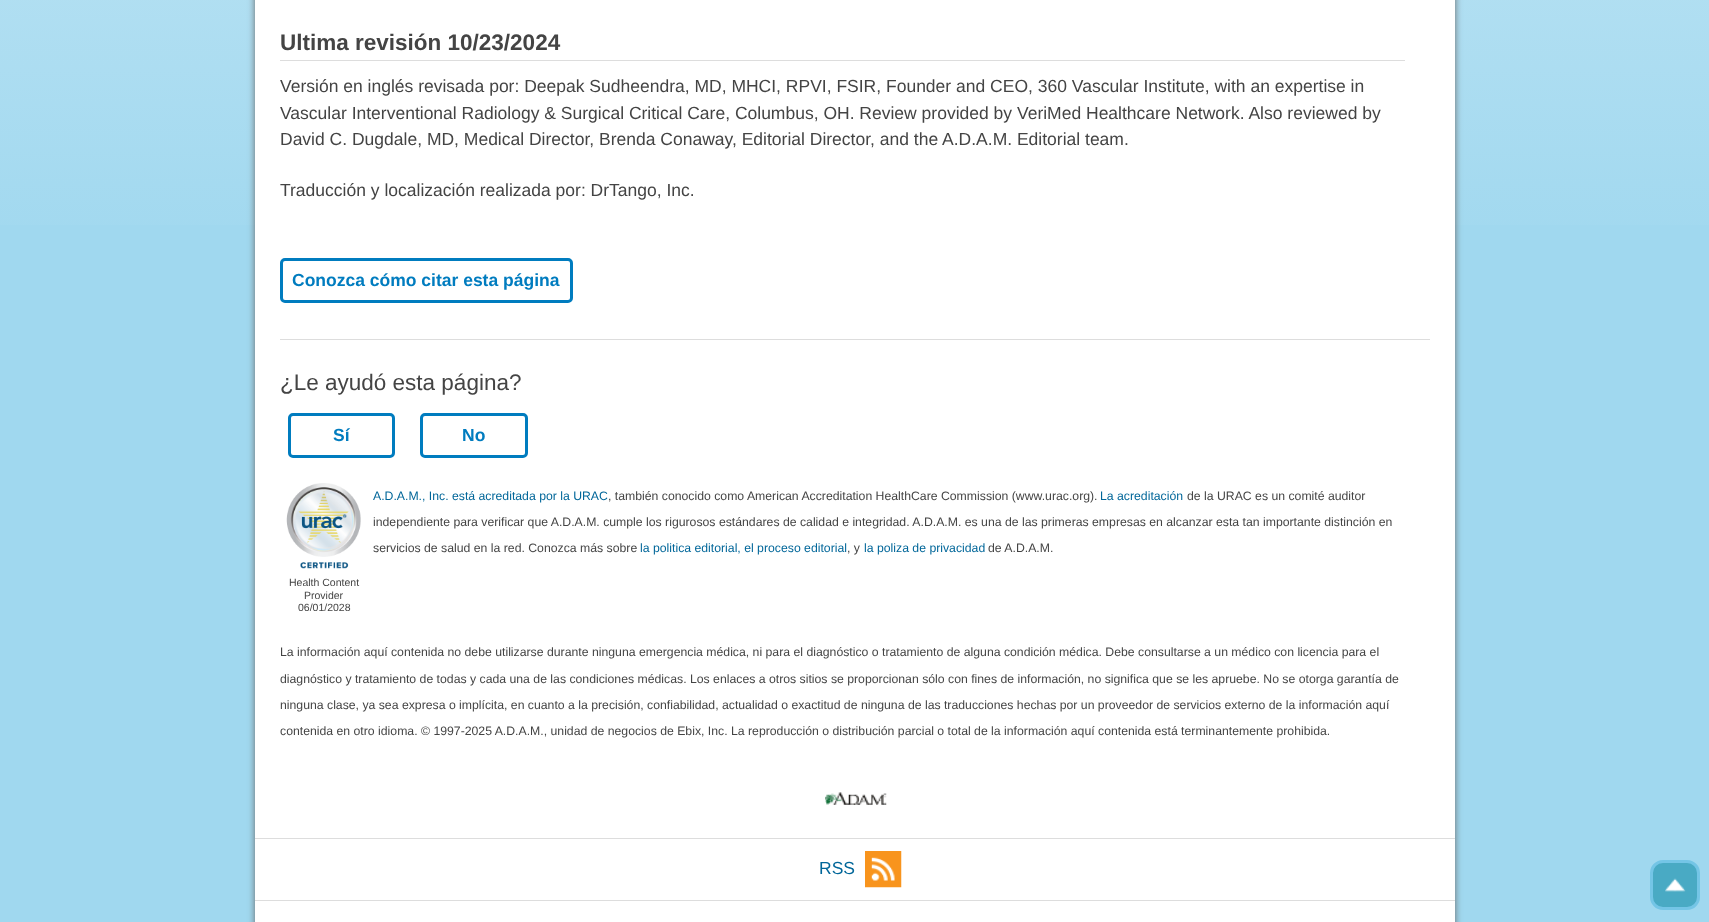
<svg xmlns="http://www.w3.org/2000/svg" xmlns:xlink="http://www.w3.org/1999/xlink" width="1709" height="922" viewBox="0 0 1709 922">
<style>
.cls-1{font:bold 22.5px Liberation Sans;fill:#444444}
.cls-2{font:17.5px Liberation Sans;fill:#444444}
.cls-3{font:bold 17.5px Liberation Sans;fill:#007cbf}
.cls-4{font:22.5px Liberation Sans;fill:#444444}
.cls-5{font:12.25px Liberation Sans;fill:#006699}
.cls-6{font:12.25px Liberation Sans;fill:#444444}
.cls-7{font:10.5px Liberation Sans;fill:#444444}
.cls-8{font:17.5px Liberation Sans;fill:#006699}
</style>
<defs>
<linearGradient id="g1" gradientUnits="userSpaceOnUse" x1="855" y1="-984" x2="855" y2="266"><stop offset="0" stop-color="#feffff"/><stop offset="0.2" stop-color="#ddf1f9"/><stop offset="1" stop-color="#a0d8ef"/></linearGradient>
</defs>
<rect width="100%" height="100%" fill="#a0d8ef"/>
<rect fill="url(#g1)" x="0" y="0" width="1709" height="225"/>
<rect fill="#666666" filter="blur(3.5px)" x="255" y="-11" width="1200" height="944"/>
<rect fill="#ffffff" x="255" y="0" width="1200" height="922"/>
<rect fill="#dddddd" x="280" y="60" width="1125" height="1"/>
<rect fill="none" stroke="#007cbf" stroke-width="3" x="281.5" y="259.5" width="290" height="42" rx="3.5"/>
<rect fill="#dddddd" x="280" y="339" width="1150" height="1"/>
<rect fill="none" stroke="#007cbf" stroke-width="3" x="289.5" y="414.5" width="104" height="42" rx="3.5"/>
<rect fill="none" stroke="#007cbf" stroke-width="3" x="421.5" y="414.5" width="105" height="42" rx="3.5"/>
<image xlink:href="image0.png" x="286" y="483" width="75" height="86"/>
<image xlink:href="image1.png" x="825" y="792" width="62" height="13"/>
<rect fill="#dddddd" x="255" y="838" width="1200" height="1"/>
<rect fill="#dddddd" x="255" y="900" width="1200" height="1"/>
<image xlink:href="image2.png" x="865" y="851" width="37" height="37"/>
<rect fill="#49aac4" stroke="#74c5e6" stroke-width="3" x="1651.5" y="861.5" width="47" height="47" rx="11.5"/>
<image xlink:href="image3.png" x="1665" y="878" width="21" height="14"/>
<text class="cls-1" x="280" y="50">Ultima revisión 10/23/2024</text>
<text class="cls-2"><tspan x="280" y="92">Versión en inglés revisada por: Deepak Sudheendra, MD, MHCI, RPVI, FSIR, Founder and CEO, 360 Vascular Institute, with an expertise in</tspan><tspan x="280" y="119">Vascular Interventional Radiology &amp; Surgical Critical Care, Columbus, OH. Review provided by VeriMed Healthcare Network. Also reviewed by</tspan><tspan x="280" y="145">David C. Dugdale, MD, Medical Director, Brenda Conaway, Editorial Director, and the A.D.A.M. Editorial team.</tspan></text>
<text class="cls-2" x="280" y="196">Traducción y localización realizada por: DrTango, Inc.</text>
<text class="cls-3" x="292" y="286">Conozca cómo citar esta página</text>
<text class="cls-4" x="280" y="390">¿Le ayudó esta página?</text>
<text class="cls-3" x="333" y="441">Sí</text>
<text class="cls-3" x="462" y="441">No</text>
<text class="cls-5" x="373" y="500">A.D.A.M., Inc. está acreditada por la URAC</text>
<text class="cls-6" x="608" y="500">, también conocido como American Accreditation HealthCare Commission (www.urac.org).</text>
<text class="cls-5" x="1100" y="500">La acreditación</text>
<text class="cls-6" x="1187" y="500">de la URAC es un comité auditor</text>
<text class="cls-6" x="373" y="526">independiente para verificar que A.D.A.M. cumple los rigurosos estándares de calidad e integridad. A.D.A.M. es una de las primeras empresas en alcanzar esta tan importante distinción en</text>
<text class="cls-6" x="373" y="552">servicios de salud en la red. Conozca más sobre</text>
<text class="cls-5" x="640" y="552">la politica editorial, el proceso editorial</text>
<text class="cls-6" x="847" y="552">, y</text>
<text class="cls-5" x="864" y="552">la poliza de privacidad</text>
<text class="cls-6" x="988" y="552">de A.D.A.M.</text>
<text class="cls-7" x="289" y="586">Health Content</text>
<text class="cls-7" x="304" y="599">Provider</text>
<text class="cls-7" x="298" y="611">06/01/2028</text>
<text class="cls-6" x="280" y="656">La información aquí contenida no debe utilizarse durante ninguna emergencia médica, ni para el diagnóstico o tratamiento de alguna condición médica. Debe consultarse a un médico con licencia para el</text>
<text class="cls-6" x="280" y="683">diagnóstico y tratamiento de todas y cada una de las condiciones médicas. Los enlaces a otros sitios se proporcionan sólo con fines de información, no significa que se les apruebe. No se otorga garantía de</text>
<text class="cls-6" x="280" y="709">ninguna clase, ya sea expresa o implícita, en cuanto a la precisión, confiabilidad, actualidad o exactitud de ninguna de las traducciones hechas por un proveedor de servicios externo de la información aquí</text>
<text class="cls-6" x="280" y="735">contenida en otro idioma. © 1997-2025 A.D.A.M., unidad de negocios de Ebix, Inc. La reproducción o distribución parcial o total de la información aquí contenida está terminantemente prohibida.</text>
<text class="cls-8" x="819" y="874">RSS</text>
</svg>
